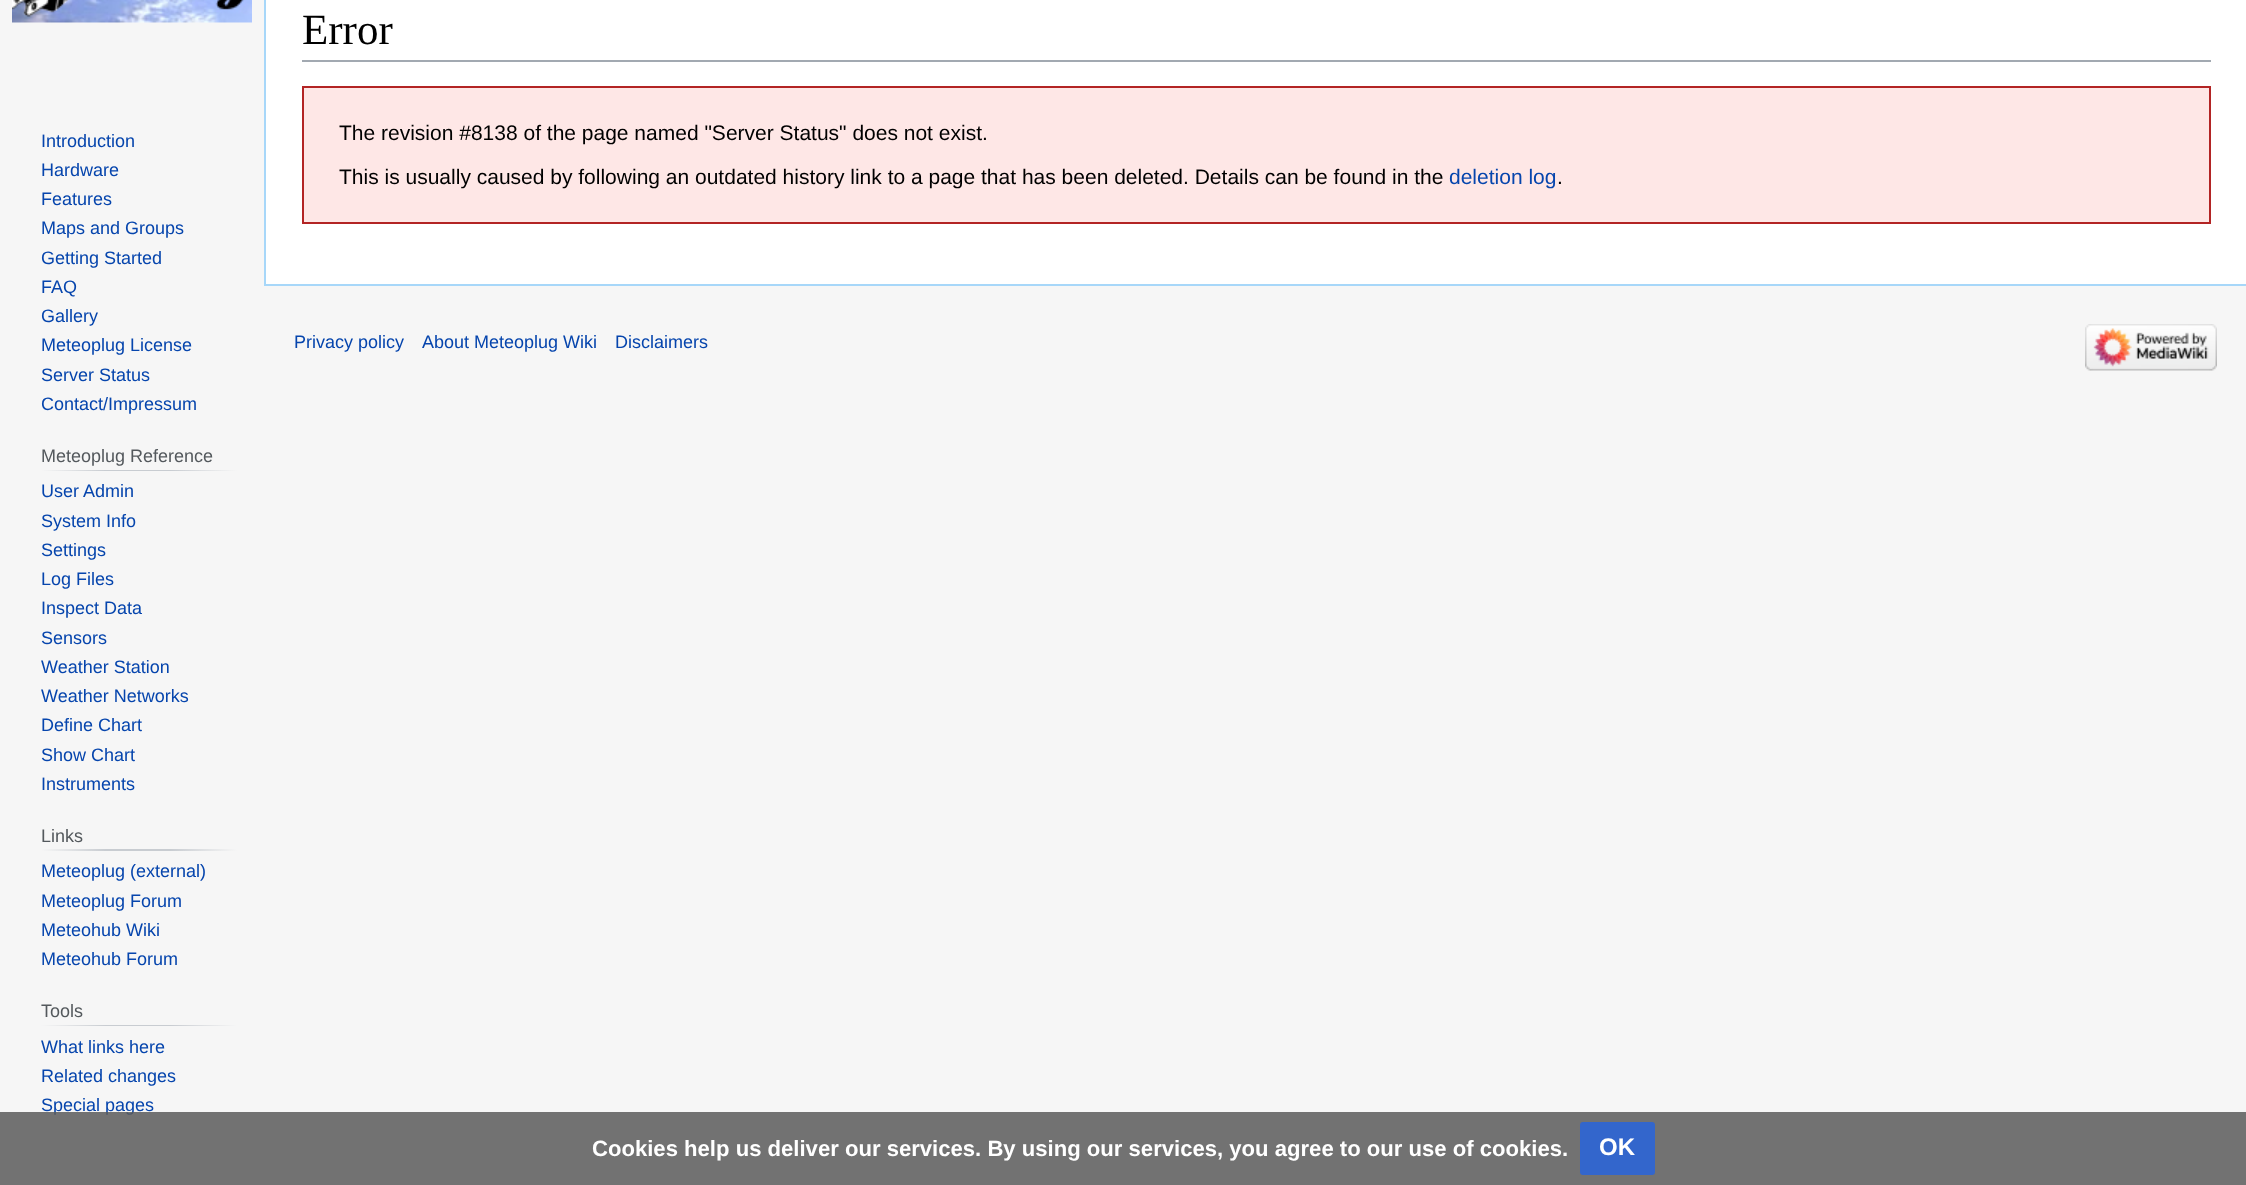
<svg xmlns="http://www.w3.org/2000/svg" xmlns:xlink="http://www.w3.org/1999/xlink" width="2246" height="1185" viewBox="0 0 2246 1185">
<style>
.cls-1{font:43px Liberation Serif;fill:#000000}
.cls-2{font:21px Liberation Sans;fill:#000000}
.cls-3{font:21px Liberation Sans;fill:#0645ad}
.cls-4{font:18px Liberation Sans;fill:#0645ad}
.cls-5{font:18px Liberation Sans;fill:#54595d}
.cls-6{font:bold 22.1px Liberation Sans;fill:#ffffff}
.cls-7{font:bold 24px Liberation Sans;fill:#ffffff}
</style>
<defs>
<linearGradient id="g1" gradientUnits="userSpaceOnUse" x1="41" y1="470" x2="237" y2="470"><stop offset="0" stop-color="#f6f6f6"/><stop offset="0.33" stop-color="#c8ccd1"/><stop offset="0.66" stop-color="#c8ccd1"/><stop offset="1" stop-color="#f6f6f6"/></linearGradient>
<linearGradient id="g2" gradientUnits="userSpaceOnUse" x1="41" y1="850" x2="237" y2="850"><stop offset="0" stop-color="#f6f6f6"/><stop offset="0.33" stop-color="#c8ccd1"/><stop offset="0.66" stop-color="#c8ccd1"/><stop offset="1" stop-color="#f6f6f6"/></linearGradient>
<linearGradient id="g3" gradientUnits="userSpaceOnUse" x1="41" y1="1025" x2="237" y2="1025"><stop offset="0" stop-color="#f6f6f6"/><stop offset="0.33" stop-color="#c8ccd1"/><stop offset="0.66" stop-color="#c8ccd1"/><stop offset="1" stop-color="#f6f6f6"/></linearGradient>
</defs>
<rect width="100%" height="100%" fill="#f6f6f6"/>
<rect fill="#ffffff" x="266" y="0" width="1980" height="284"/>
<rect fill="#a7d7f9" x="264" y="284" width="1982" height="2"/>
<rect fill="#a7d7f9" x="264" y="0" width="2" height="285"/>
<rect fill="#a2a9b1" x="302" y="60" width="1909" height="2"/>
<rect fill="#fee7e6" stroke="#b32424" stroke-width="2" x="303" y="87" width="1907" height="136"/>
<image xlink:href="image0.png" x="12" y="0" width="240" height="23"/>
<rect fill="url(#g1)" x="41" y="470" width="196" height="1"/>
<rect fill="url(#g2)" x="41" y="849" width="196" height="2"/>
<rect fill="url(#g3)" x="41" y="1025" width="196" height="1"/>
<image xlink:href="image1.png" x="2085" y="324" width="132" height="47"/>
<text class="cls-1" x="302" y="44">Error</text>
<text class="cls-2" x="339" y="140">The revision #8138 of the page named "Server Status" does not exist.</text>
<text class="cls-2" x="339" y="184">This is usually caused by following an outdated history link to a page that has been deleted. Details can be found in the</text>
<text class="cls-3" x="1449" y="184">deletion log</text>
<text class="cls-2" x="1557" y="184">.</text>
<text class="cls-4"><tspan x="41" y="147">Introduction</tspan><tspan x="41" y="176">Hardware</tspan><tspan x="41" y="205">Features</tspan><tspan x="41" y="234">Maps and Groups</tspan><tspan x="41" y="264">Getting Started</tspan><tspan x="41" y="293">FAQ</tspan><tspan x="41" y="322">Gallery</tspan><tspan x="41" y="351">Meteoplug License</tspan><tspan x="41" y="381">Server Status</tspan><tspan x="41" y="410">Contact/Impressum</tspan></text>
<text class="cls-5" x="41" y="462">Meteoplug Reference</text>
<text class="cls-4"><tspan x="41" y="497">User Admin</tspan><tspan x="41" y="527">System Info</tspan><tspan x="41" y="556">Settings</tspan><tspan x="41" y="585">Log Files</tspan><tspan x="41" y="614">Inspect Data</tspan><tspan x="41" y="644">Sensors</tspan><tspan x="41" y="673">Weather Station</tspan><tspan x="41" y="702">Weather Networks</tspan><tspan x="41" y="731">Define Chart</tspan><tspan x="41" y="761">Show Chart</tspan><tspan x="41" y="790">Instruments</tspan></text>
<text class="cls-5" x="41" y="842">Links</text>
<text class="cls-4"><tspan x="41" y="877">Meteoplug (external)</tspan><tspan x="41" y="907">Meteoplug Forum</tspan><tspan x="41" y="936">Meteohub Wiki</tspan><tspan x="41" y="965">Meteohub Forum</tspan></text>
<text class="cls-5" x="41" y="1017">Tools</text>
<text class="cls-4"><tspan x="41" y="1053">What links here</tspan><tspan x="41" y="1082">Related changes</tspan><tspan x="41" y="1111">Special pages</tspan></text>
<text class="cls-4" x="294" y="348">Privacy policy</text>
<text class="cls-4" x="422" y="348">About Meteoplug Wiki</text>
<text class="cls-4" x="615" y="348">Disclaimers</text>
<rect fill="#5a5a5a" fill-opacity="0.85" x="0" y="1112" width="2246" height="73"/>
<text class="cls-6" x="592" y="1156">Cookies help us deliver our services. By using our services, you agree to our use of cookies.</text>
<rect fill="#3366cc" stroke="#3366cc" stroke-width="2" x="1581" y="1123" width="73" height="51" rx="2"/>
<text class="cls-7" x="1599" y="1155">OK</text>
</svg>
